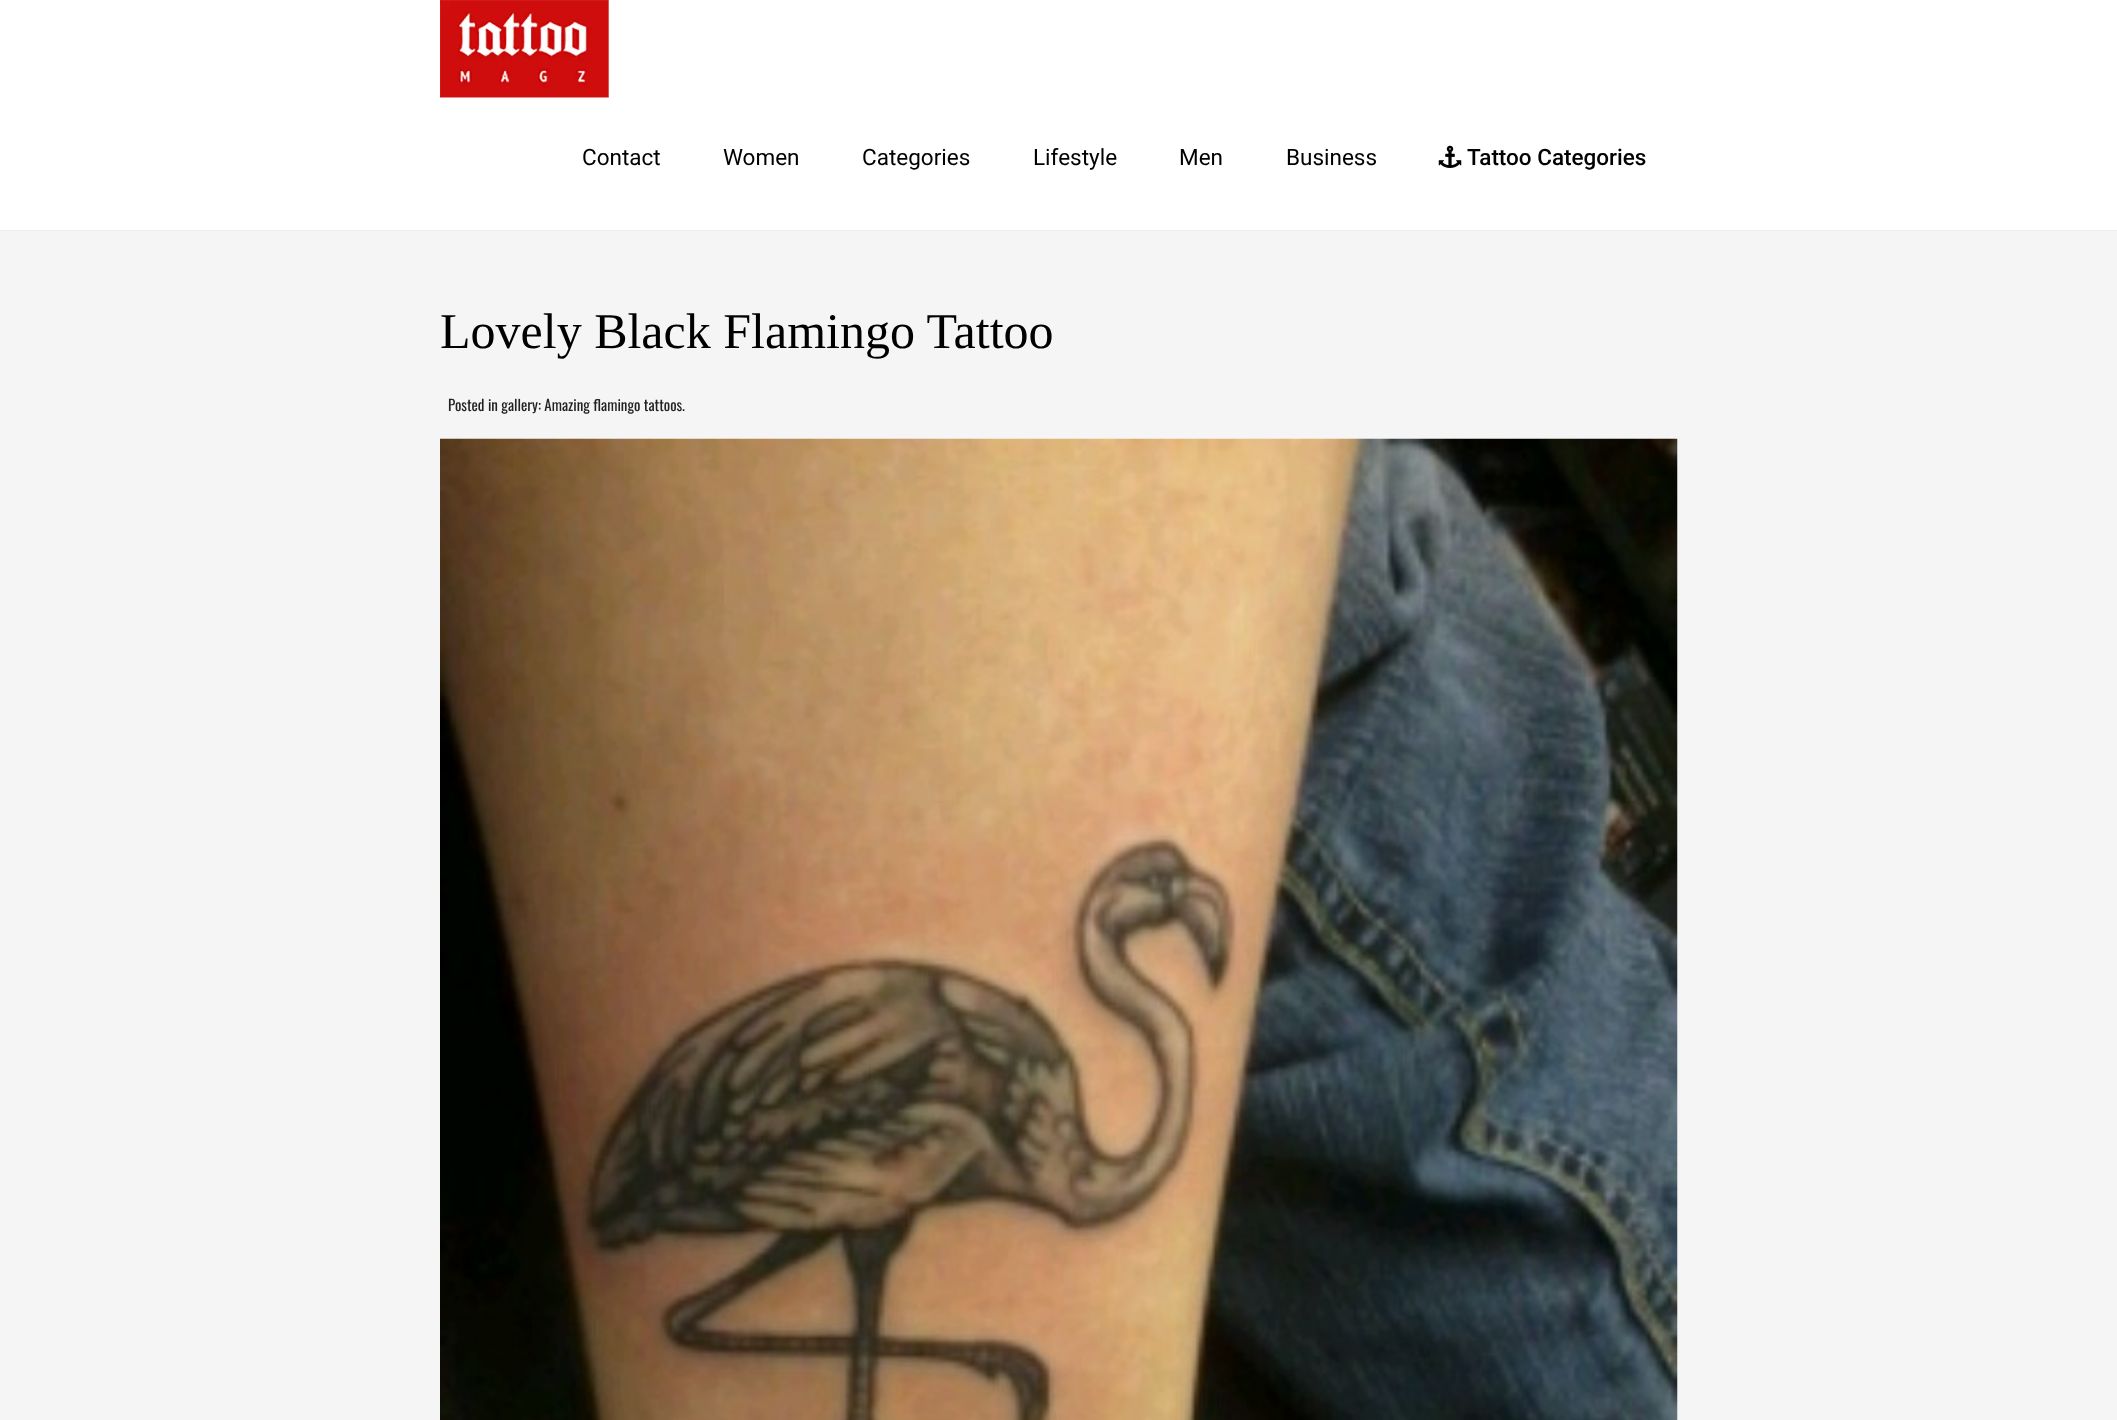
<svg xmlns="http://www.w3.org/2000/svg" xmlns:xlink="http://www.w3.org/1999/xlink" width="2117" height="1420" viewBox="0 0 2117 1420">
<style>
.cls-1{font:22.5px Roboto;fill:#000000}
.cls-2{font:500 22.5px Roboto;fill:#000000}
.cls-3{font:50px Liberation Serif;fill:#000000}
.cls-4{font:15px Oswald;fill:#222222}
</style>
<rect width="100%" height="100%" fill="#f5f5f5"/>
<rect fill="#ffffff" x="0" y="0" width="2117" height="230"/>
<rect fill="#eeeeee" x="0" y="230" width="2117" height="1"/>
<image xlink:href="image0.png" x="440" y="0" width="169" height="98"/>
<image xlink:href="image1.png" x="1438" y="145" width="24" height="23"/>
<image xlink:href="image2.png" x="440" y="438" width="1238" height="982"/>
<text class="cls-1" x="582" y="165">Contact</text>
<text class="cls-1" x="723" y="165">Women</text>
<text class="cls-1" x="862" y="165">Categories</text>
<text class="cls-1" x="1033" y="165">Lifestyle</text>
<text class="cls-1" x="1179" y="165">Men</text>
<text class="cls-1" x="1286" y="165">Business</text>
<text class="cls-2" x="1467" y="165">Tattoo Categories</text>
<text class="cls-3" x="440" y="348">Lovely Black Flamingo Tattoo</text>
<text class="cls-4" x="448" y="411">Posted in gallery: Amazing flamingo tattoos.</text>
</svg>
